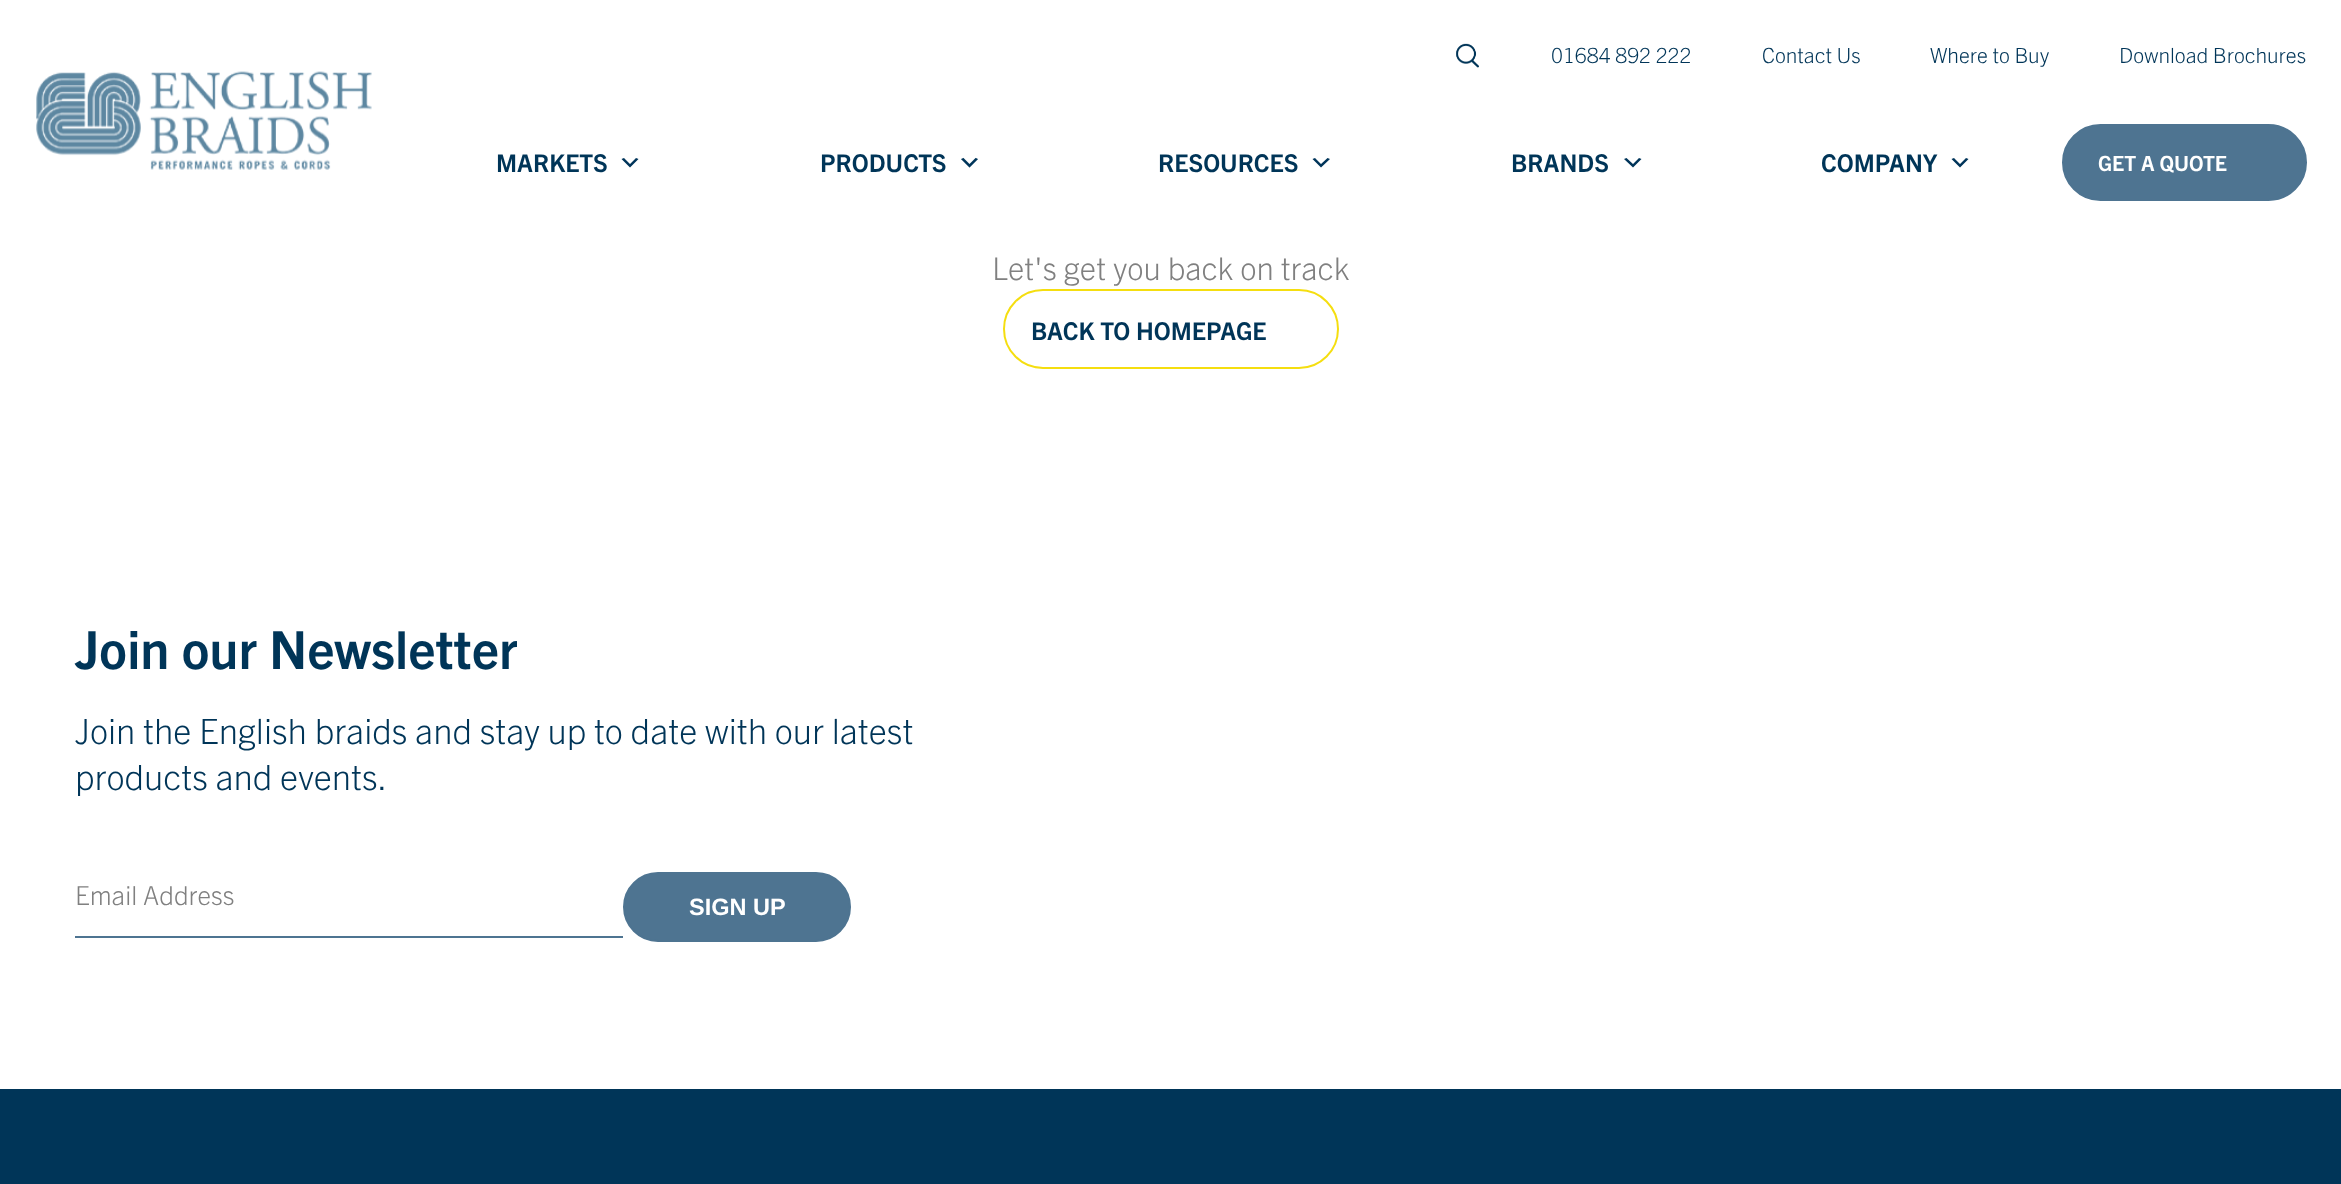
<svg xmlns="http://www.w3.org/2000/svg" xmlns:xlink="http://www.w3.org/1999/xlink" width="2341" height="1184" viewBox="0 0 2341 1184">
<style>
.cls-1{font:300 21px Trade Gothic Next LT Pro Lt;fill:#003558}
.cls-2{font:bold 24.5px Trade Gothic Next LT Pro;fill:#003558}
.cls-3{font:bold 21px Trade Gothic Next LT Pro;fill:#ffffff}
.cls-4{font:300 31.5px Trade Gothic Next LT Pro Lt;fill:#808080}
.cls-5{font:bold 52.5px Trade Gothic Next LT Pro;fill:#003558}
.cls-6{font:300 35px Trade Gothic Next LT Pro Lt;fill:#003558}
.cls-7{font:300 26.25px Trade Gothic Next LT Pro Lt;fill:#808080}
.cls-8{font:bold 23.5px Liberation Sans;fill:#ffffff}
</style>
<rect width="100%" height="100%" fill="#ffffff"/>
<image xlink:href="image0.png" x="36" y="71" width="336" height="99"/>
<image xlink:href="image1.png" x="1456" y="43" width="23" height="25"/>
<path fill="#00355a" d="M624 158L630 164L636 158L638.5 159L630 167.5L621.5 159Z"/>
<image xlink:href="image2.png" x="961" y="157" width="17" height="11"/>
<path fill="#00355a" d="M1315 158L1321 164L1327.5 158L1330 159L1321 167.5L1312.5 159Z"/>
<path fill="#00355a" d="M1626.5 158L1633 164L1639 158L1641.5 159L1633 167.5L1624 159Z"/>
<path fill="#00355a" d="M1954 158L1960 164L1966 158L1968.5 159L1960 167.5L1951.5 159Z"/>
<rect fill="#4e7491" stroke="#4e7491" stroke-width="2" x="2063" y="125" width="243" height="75" rx="37.5"/>
<rect fill="none" stroke="#f5de0f" stroke-width="2" x="1004" y="290" width="334" height="78" rx="39"/>
<rect fill="#4e7491" x="75" y="936" width="548" height="2"/>
<rect fill="#4e7491" stroke="#4e7491" stroke-width="2" x="624" y="873" width="226" height="68" rx="34"/>
<rect fill="#003558" x="0" y="1089" width="2341" height="95"/>
<text class="cls-1" x="1551" y="63">01684 892 222</text>
<text class="cls-1" x="1762" y="63">Contact Us</text>
<text class="cls-1" x="1930" y="63">Where to Buy</text>
<text class="cls-1" x="2119" y="63">Download Brochures</text>
<text class="cls-2" x="496" y="172">MARKETS</text>
<text class="cls-2" x="820" y="172">PRODUCTS</text>
<text class="cls-2" x="1158" y="172">RESOURCES</text>
<text class="cls-2" x="1511" y="172">BRANDS</text>
<text class="cls-2" x="1821" y="172">COMPANY</text>
<text class="cls-3" x="2098" y="171">GET A QUOTE</text>
<text class="cls-4" x="992" y="280">Let's get you back on track</text>
<text class="cls-2" x="1031" y="340">BACK TO HOMEPAGE</text>
<text class="cls-5" x="75" y="669">Join our Newsletter</text>
<text class="cls-6"><tspan x="75" y="744">Join the English braids and stay up to date with our latest</tspan><tspan x="75" y="790">products and events.</tspan></text>
<text class="cls-7" x="75" y="905">Email Address</text>
<text class="cls-8" x="689" y="915">SIGN UP</text>
</svg>
